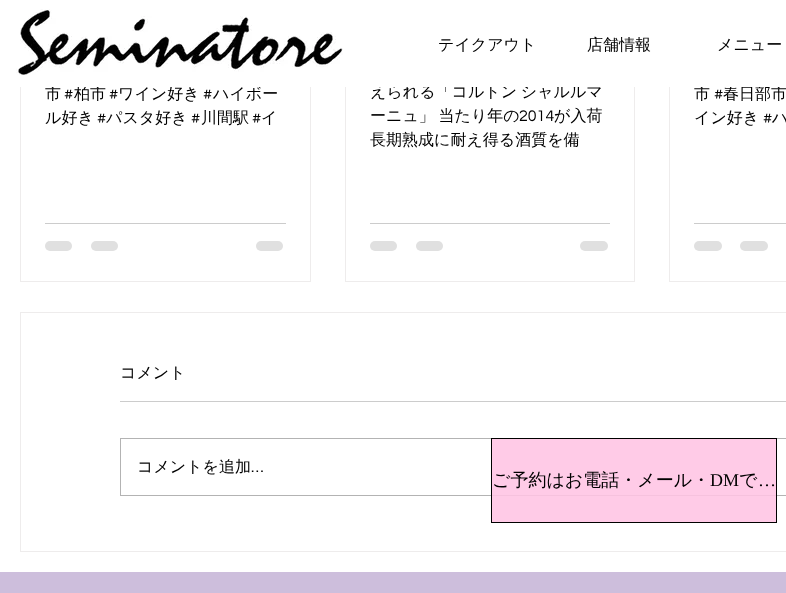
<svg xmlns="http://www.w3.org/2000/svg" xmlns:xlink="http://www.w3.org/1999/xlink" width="786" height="593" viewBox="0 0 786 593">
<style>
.cls-1{font:500 16px WenQuanYi Zen Hei;fill:#000000}
.cls-2{font:16px Questrial;fill:#000000}
.cls-3{font:500 18px WenQuanYi Zen Hei;fill:#000000}
.cls-4{font:18px Liberation Serif;fill:#000000}
</style>
<rect width="100%" height="100%" fill="#ffffff"/>
<rect fill="none" stroke="#eeecec" x="20.5" y="-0.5" width="290" height="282"/>
<rect fill="#cccccc" x="45" y="223" width="241" height="1"/>
<rect fill="#e0e0e0" x="45" y="241" width="27" height="10" rx="5"/>
<rect fill="#e0e0e0" x="91" y="241" width="27" height="10" rx="5"/>
<rect fill="#e0e0e0" x="256" y="241" width="27" height="10" rx="5"/>
<rect fill="none" stroke="#eeecec" x="345.5" y="-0.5" width="289" height="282"/>
<rect fill="#cccccc" x="370" y="223" width="240" height="1"/>
<rect fill="#e0e0e0" x="370" y="241" width="27" height="10" rx="5"/>
<rect fill="#e0e0e0" x="416" y="241" width="27" height="10" rx="5"/>
<rect fill="#e0e0e0" x="580" y="241" width="28" height="10" rx="5"/>
<rect fill="none" stroke="#eeecec" x="669.5" y="-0.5" width="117" height="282"/>
<rect fill="#cccccc" x="694" y="223" width="92" height="1"/>
<rect fill="#e0e0e0" x="694" y="241" width="28" height="10" rx="5"/>
<rect fill="#e0e0e0" x="740" y="241" width="28" height="10" rx="5"/>
<rect fill="none" stroke="#eeecec" x="20.5" y="312.5" width="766" height="239"/>
<rect fill="#cccccc" x="120" y="401" width="666" height="1"/>
<rect fill="none" stroke="#b3b3b3" x="120.5" y="438.5" width="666" height="57"/>
<rect fill="#ffc4e4" fill-opacity="0.88" stroke="#000000" x="491.5" y="438.5" width="285" height="84"/>
<rect fill="#cdbedc" x="0" y="572" width="786" height="21"/>
<text class="cls-1" x="45" y="99">市</text>
<text class="cls-2" x="64" y="99">#</text>
<text class="cls-1" x="74" y="99">柏市</text>
<text class="cls-2" x="109" y="99">#</text>
<text class="cls-1" x="118" y="99">ワイン好き</text>
<text class="cls-2" x="203" y="99">#</text>
<text class="cls-1" x="213" y="99">ハイボー</text>
<text class="cls-1" x="45" y="123">ル好き</text>
<text class="cls-2" x="97" y="123">#</text>
<text class="cls-1" x="106" y="123">パスタ好き</text>
<text class="cls-2" x="191" y="123">#</text>
<text class="cls-1" x="201" y="123">川間駅</text>
<text class="cls-2" x="252" y="123">#</text>
<text class="cls-1" x="261" y="123">イ</text>
<text class="cls-1"><tspan x="370" y="97" word-spacing="-1">えられる「コルトン シャルルマ</tspan><tspan x="370" y="121" word-spacing="-1">ーニュ」 当たり年の</tspan></text>
<text class="cls-2" x="519" y="121">2014</text>
<text class="cls-1" x="554" y="121">が入荷</text>
<text class="cls-1" x="370" y="145">長期熟成に耐え得る酒質を備</text>
<text class="cls-1" x="694" y="99">市</text>
<text class="cls-2" x="714" y="99">#</text>
<text class="cls-1" x="723" y="99">春日部市</text>
<rect fill="#ffffff" x="20" y="0" width="759" height="87"/>
<text class="cls-1" x="717" y="50">メニュー</text>
<text class="cls-1" x="587" y="50">店舗情報</text>
<text class="cls-1" x="438" y="50">テイクアウト</text>
<image xlink:href="image0.png" x="16" y="9" width="327" height="66"/>
<text class="cls-1" x="694" y="123">イン好き</text>
<text class="cls-2" x="763" y="123">#</text>
<text class="cls-1" x="772" y="123">ハ</text>
<text class="cls-1" x="120" y="378">コメント</text>
<text class="cls-1" x="137" y="472">コメントを追加</text>
<text class="cls-2" x="251" y="472">…</text>
<text class="cls-3" x="492" y="486">ご予約はお電話・メール・</text>
<text class="cls-4" x="710" y="486">DM</text>
<text class="cls-3" x="739" y="486">で</text>
<text class="cls-4" x="758" y="486">…</text>
</svg>
